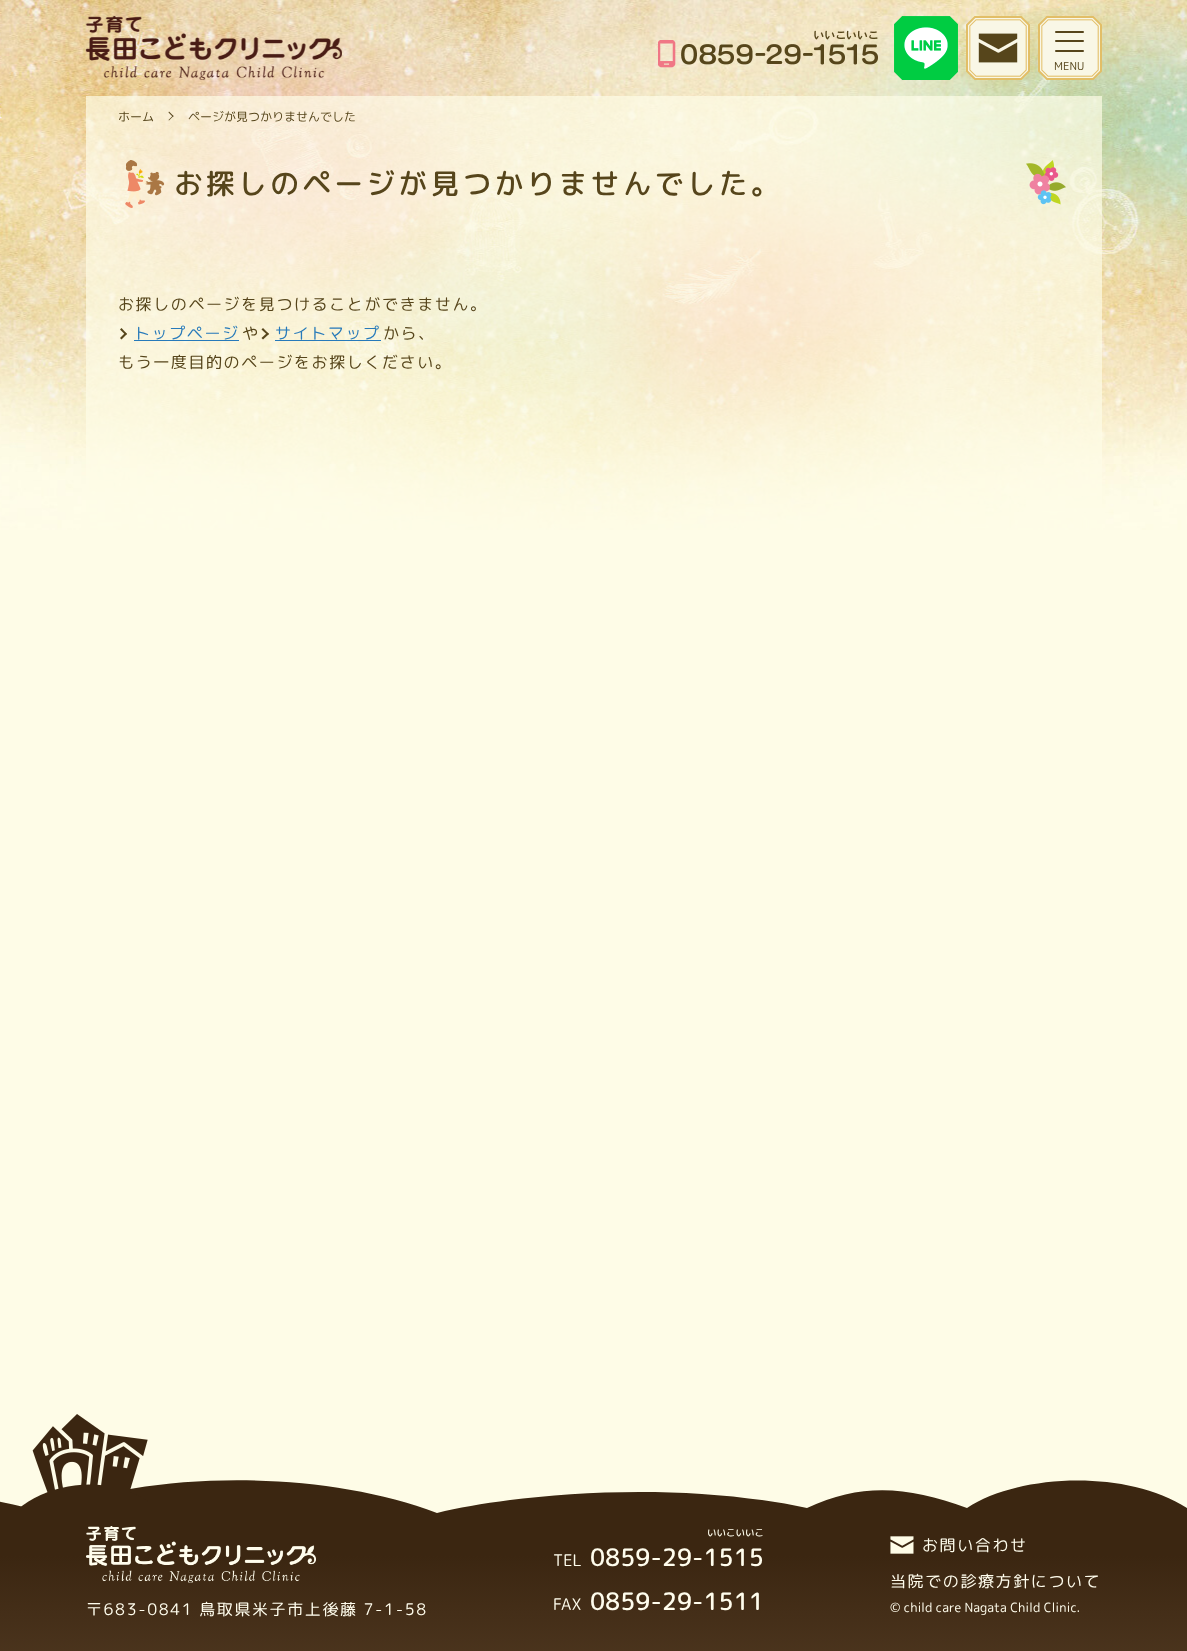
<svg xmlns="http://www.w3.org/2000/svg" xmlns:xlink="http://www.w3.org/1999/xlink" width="1187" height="1651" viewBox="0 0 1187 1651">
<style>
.cls-1{font:11px 'Rounded Mplus 1c';fill:#56451b}
.cls-2{font:12px 'Rounded Mplus 1c';fill:#56451b}
.cls-3{font:500 28.8px 'Rounded Mplus 1c';letter-spacing:3.25px;fill:#56451b}
.cls-4{font:16px 'Rounded Mplus 1c';letter-spacing:1.6px;fill:#56451b}
.cls-5{font:16px 'Rounded Mplus 1c';letter-spacing:1.6px;fill:#277aba}
.cls-6{font:16px 'Rounded Mplus 1c';letter-spacing:1.6px;fill:#fffded}
.cls-7{font:16px 'Rounded Mplus 1c';fill:#fffded}
.cls-8{font:500 9.5px 'Rounded Mplus 1c';fill:#fffded}
.cls-9{font:500 24px 'Rounded Mplus 1c';fill:#fffded}
.cls-10{font:12.75px 'Rounded Mplus 1c';fill:#fffded}
</style>
<defs>
<linearGradient id="g1" gradientUnits="userSpaceOnUse" x1="437" y1="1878" x2="437" y2="1480"><stop offset="0.05" stop-color="#6a5035"/><stop offset="0.81" stop-color="#3b2611"/></linearGradient>
</defs>
<rect width="100%" height="100%" fill="#fefce7"/>
<image xlink:href="image0.png" x="0" y="0" width="1187" height="530"/>
<image xlink:href="image1.png" x="1038" y="16" width="64" height="64"/>
<rect fill="#56451b" x="1055" y="31" width="29" height="2" rx="1"/>
<rect fill="#56451b" x="1055" y="40" width="29" height="2" rx="1"/>
<rect fill="#56451b" x="1055" y="50" width="29" height="2" rx="1"/>
<image xlink:href="image2.png" x="85" y="16" width="257" height="64"/>
<image xlink:href="image3.png" x="658" y="30" width="220" height="38"/>
<image xlink:href="image4.png" x="894" y="16" width="64" height="64"/>
<image xlink:href="image5.png" x="966" y="16" width="64" height="64"/>
<image xlink:href="image6.png" x="978" y="33" width="40" height="30"/>
<rect fill="#fefce7" fill-opacity="0.7" x="86" y="96" width="1016" height="434"/>
<path fill="#56451b" d="M169 111.5L173.5 116L173 117L168.5 112.5Z"/>
<path fill="#56451b" d="M173 115.5L173.5 116L169 120.5L168.5 120Z"/>
<image xlink:href="image7.png" x="1026" y="160" width="40" height="45"/>
<image xlink:href="image8.png" x="125" y="160" width="40" height="48"/>
<path fill="#56451b" d="M121.5 328L127 334L125.5 335L120 329.5Z"/>
<path fill="#56451b" d="M125.5 332.5L127 334L121.5 339.5L120 338Z"/>
<rect fill="#277aba" x="134" y="340" width="105" height="1"/>
<path fill="#56451b" d="M263 328L269 334L267.5 335L261.5 329.5Z"/>
<path fill="#56451b" d="M267.5 332.5L269 334L263 339.5L261.5 338Z"/>
<rect fill="#277aba" x="275" y="340" width="106" height="1"/>
<path fill="url(#g1)" fill-rule="evenodd" d="M-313 1508C-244 1488-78 1476 47 1513C142 1471 319 1468 437 1513C521 1493 676 1480 807 1508C863 1482 909 1487 967 1508C1014 1476 1122 1467 1187 1508V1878H-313Z"/>
<image xlink:href="image9.png" x="21" y="1414" width="127" height="99"/>
<image xlink:href="image10.png" x="86" y="1526" width="230" height="57"/>
<image xlink:href="image11.png" x="890" y="1536" width="24" height="18"/>
<text class="cls-1" x="1054" y="70">MENU</text>
<text class="cls-2" x="118" y="121">ホーム</text>
<text class="cls-2" x="188" y="121">ページが見つかりませんでした</text>
<text class="cls-3" x="174" y="194">お探しのページが見つかりませんでした。</text>
<text class="cls-4" x="118" y="310">お探しのページを見つけることができません。</text>
<text class="cls-5" x="134" y="339">トップページ</text>
<text class="cls-4" x="242" y="339">や</text>
<text class="cls-5" x="275" y="339">サイトマップ</text>
<text class="cls-4" x="383" y="339">から、</text>
<text class="cls-4" x="118" y="368">もう一度目的のページをお探しください。</text>
<text class="cls-6" x="86" y="1615">〒683-0841 鳥取県米子市上後藤 7-1-58</text>
<text class="cls-7" x="553" y="1566">TEL</text>
<text class="cls-8" x="707" y="1536">いいこいいこ</text>
<text class="cls-9" x="590" y="1566">0859-29-1515</text>
<text class="cls-7" x="553" y="1610">FAX</text>
<text class="cls-9" x="590" y="1610">0859-29-1511</text>
<text class="cls-6" x="922" y="1551">お問い合わせ</text>
<text class="cls-6" x="890" y="1587">当院での診療方針について</text>
<text class="cls-10" x="890" y="1612">© child care Nagata Child Clinic.</text>
</svg>
